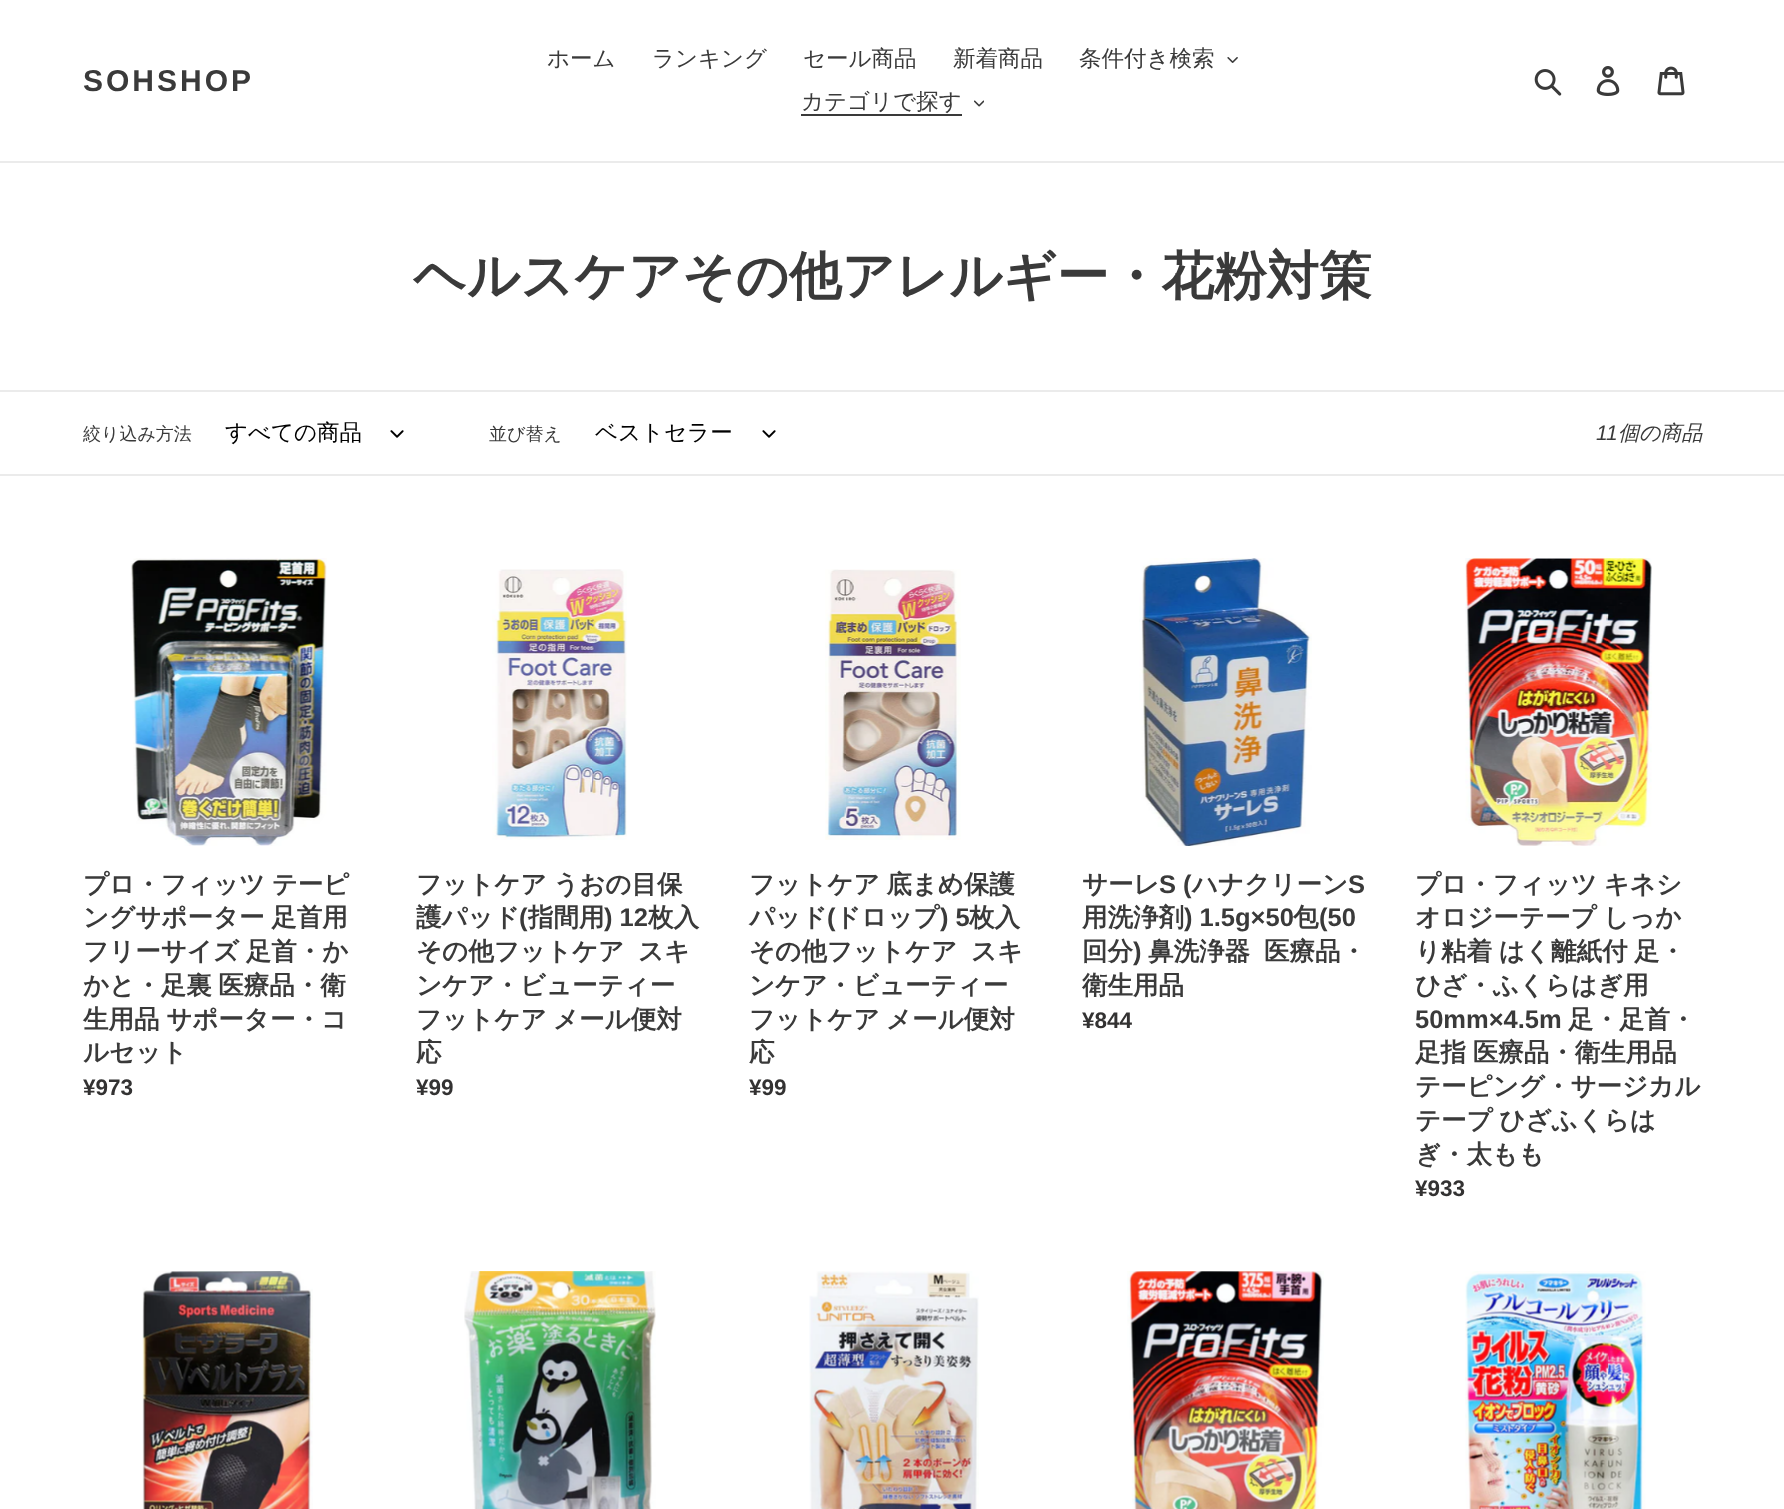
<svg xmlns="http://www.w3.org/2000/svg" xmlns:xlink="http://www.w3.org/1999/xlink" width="1784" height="1509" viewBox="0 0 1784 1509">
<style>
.cls-1{font:bold 30px Liberation Sans;letter-spacing:3px;fill:#3a3a3a}
.cls-2{font:500 22.5px WenQuanYi Zen Hei;fill:#3a3a3a}
.cls-3{font:bold 52.5px WenQuanYi Zen Hei;fill:#3a3a3a}
.cls-4{font:500 18px WenQuanYi Zen Hei;fill:#3a3a3a}
.cls-5{font:500 22.5px WenQuanYi Zen Hei;fill:#000000}
.cls-6{font:italic 21px Liberation Sans;fill:#3a3a3a}
.cls-7{font:italic 500 21px WenQuanYi Zen Hei;fill:#3a3a3a}
.cls-8{font:bold 25.5px WenQuanYi Zen Hei;fill:#3a3a3a}
.cls-9{font:bold 22.5px Liberation Sans;fill:#333232}
.cls-10{font:bold 25.5px Liberation Sans;fill:#3a3a3a}
</style>
<rect width="100%" height="100%" fill="#ffffff"/>
<rect fill="#ebebeb" x="0" y="161" width="1784" height="2"/>
<image xlink:href="image0.png" x="1227" y="57" width="11" height="6"/>
<rect fill="#3a3a3a" x="801" y="114" width="161" height="2"/>
<image xlink:href="image1.png" x="974" y="100" width="10" height="7"/>
<image xlink:href="image2.png" x="1534" y="69" width="28" height="27"/>
<image xlink:href="image3.png" x="1596" y="66" width="24" height="30"/>
<image xlink:href="image4.png" x="1657" y="66" width="28" height="30"/>
<rect fill="#ebebeb" x="0" y="390" width="1784" height="2"/>
<rect fill="#ebebeb" x="0" y="474" width="1784" height="2"/>
<image xlink:href="image5.png" x="390" y="430" width="14" height="8"/>
<image xlink:href="image5.png" x="762" y="430" width="14" height="8"/>
<image xlink:href="image6.png" x="130" y="558" width="197" height="288"/>
<image xlink:href="image7.png" x="492" y="569" width="135" height="271"/>
<image xlink:href="image8.png" x="825" y="569" width="136" height="271"/>
<image xlink:href="image9.png" x="1139" y="558" width="173" height="288"/>
<image xlink:href="image10.png" x="1465" y="558" width="187" height="288"/>
<image xlink:href="image11.png" x="142" y="1271" width="171" height="238"/>
<image xlink:href="image12.png" x="464" y="1271" width="192" height="238"/>
<image xlink:href="image13.png" x="809" y="1271" width="170" height="238"/>
<image xlink:href="image14.png" x="1127" y="1271" width="197" height="238"/>
<image xlink:href="image15.png" x="1465" y="1271" width="181" height="238"/>
<text class="cls-1" x="83" y="91">SOHSHOP</text>
<text class="cls-2" x="547" y="66">ホーム</text>
<text class="cls-2" x="652" y="66">ランキング</text>
<text class="cls-2" x="803" y="66">セール商品</text>
<text class="cls-2" x="953" y="66">新着商品</text>
<text class="cls-2" x="1079" y="66">条件付き検索</text>
<text class="cls-2" x="801" y="109">カテゴリで探す</text>
<text class="cls-3" x="413" y="294">ヘルスケアその他アレルギー・花粉対策</text>
<text class="cls-4" x="83" y="440">絞り込み方法</text>
<text class="cls-5" x="225" y="440">すべての商品</text>
<text class="cls-4" x="489" y="440">並び替え</text>
<text class="cls-5" x="595" y="440">ベストセラー</text>
<text class="cls-6" x="1596" y="440">11</text>
<text class="cls-7" x="1618" y="440">個の商品</text>
<text class="cls-8"><tspan x="83" y="893" word-spacing="-1">プロ・フィッツ テーピ</tspan><tspan x="83" y="926" word-spacing="-1">ングサポーター 足首用</tspan><tspan x="83" y="960" word-spacing="-1">フリーサイズ 足首・か</tspan><tspan x="83" y="994" word-spacing="-1">かと・足裏 医療品・衛</tspan><tspan x="83" y="1028" word-spacing="-1">生用品 サポーター・コ</tspan><tspan x="83" y="1061">ルセット</tspan></text>
<text class="cls-9" x="83" y="1095">¥973</text>
<text class="cls-8"><tspan x="416" y="893" word-spacing="-1">フットケア うおの目保</tspan><tspan x="416" y="926">護パッド</tspan></text>
<text class="cls-10" x="519" y="926">(</text>
<text class="cls-8" x="528" y="926">指間用</text>
<text class="cls-10" x="604" y="926">) 12</text>
<text class="cls-8" x="648" y="926">枚入</text>
<text class="cls-8" x="416" y="960">その他フットケア</text>
<text class="cls-8" x="638" y="960">スキ</text>
<text class="cls-8"><tspan x="416" y="994">ンケア・ビューティー</tspan><tspan x="416" y="1028">フットケア</tspan></text>
<text class="cls-8" x="553" y="1028">メール便対</text>
<text class="cls-8" x="416" y="1061">応</text>
<text class="cls-9" x="416" y="1095">¥99</text>
<text class="cls-8"><tspan x="749" y="893" word-spacing="-1">フットケア 底まめ保護</tspan><tspan x="749" y="926">パッド</tspan></text>
<text class="cls-10" x="827" y="926">(</text>
<text class="cls-8" x="835" y="926">ドロップ</text>
<text class="cls-10" x="940" y="926">) 5</text>
<text class="cls-8" x="969" y="926">枚入</text>
<text class="cls-8" x="749" y="960">その他フットケア</text>
<text class="cls-8" x="971" y="960">スキ</text>
<text class="cls-8"><tspan x="749" y="994">ンケア・ビューティー</tspan><tspan x="749" y="1028">フットケア</tspan></text>
<text class="cls-8" x="886" y="1028">メール便対</text>
<text class="cls-8" x="749" y="1061">応</text>
<text class="cls-9" x="749" y="1095">¥99</text>
<text class="cls-8" x="1082" y="893">サーレ</text>
<text class="cls-10" x="1159" y="893">S (</text>
<text class="cls-8" x="1192" y="893">ハナクリーン</text>
<text class="cls-10" x="1348" y="893">S</text>
<text class="cls-8" x="1082" y="926">用洗浄剤</text>
<text class="cls-10" x="1184" y="926">) 1.5g×50</text>
<text class="cls-8" x="1293" y="926">包</text>
<text class="cls-10" x="1319" y="926">(50</text>
<text class="cls-8" x="1082" y="960">回分</text>
<text class="cls-10" x="1133" y="960">)</text>
<text class="cls-8" x="1148" y="960">鼻洗浄器</text>
<text class="cls-8" x="1264" y="960">医療品・</text>
<text class="cls-8" x="1082" y="994">衛生用品</text>
<text class="cls-9" x="1082" y="1028">¥844</text>
<text class="cls-8"><tspan x="1415" y="893" word-spacing="-1">プロ・フィッツ キネシ</tspan><tspan x="1415" y="926" word-spacing="-1">オロジーテープ しっか</tspan><tspan x="1415" y="960" word-spacing="-1">り粘着 はく離紙付 足・</tspan><tspan x="1415" y="994">ひざ・ふくらはぎ用</tspan></text>
<text class="cls-10" x="1415" y="1028">50mm×4.5m</text>
<text class="cls-8" x="1568" y="1028">足・足首・</text>
<text class="cls-8"><tspan x="1415" y="1061" word-spacing="-1">足指 医療品・衛生用品</tspan><tspan x="1415" y="1095">テーピング・サージカル</tspan><tspan x="1415" y="1129" word-spacing="-1">テープ ひざふくらは</tspan><tspan x="1415" y="1163">ぎ・太もも</tspan></text>
<text class="cls-9" x="1415" y="1196">¥933</text>
</svg>
